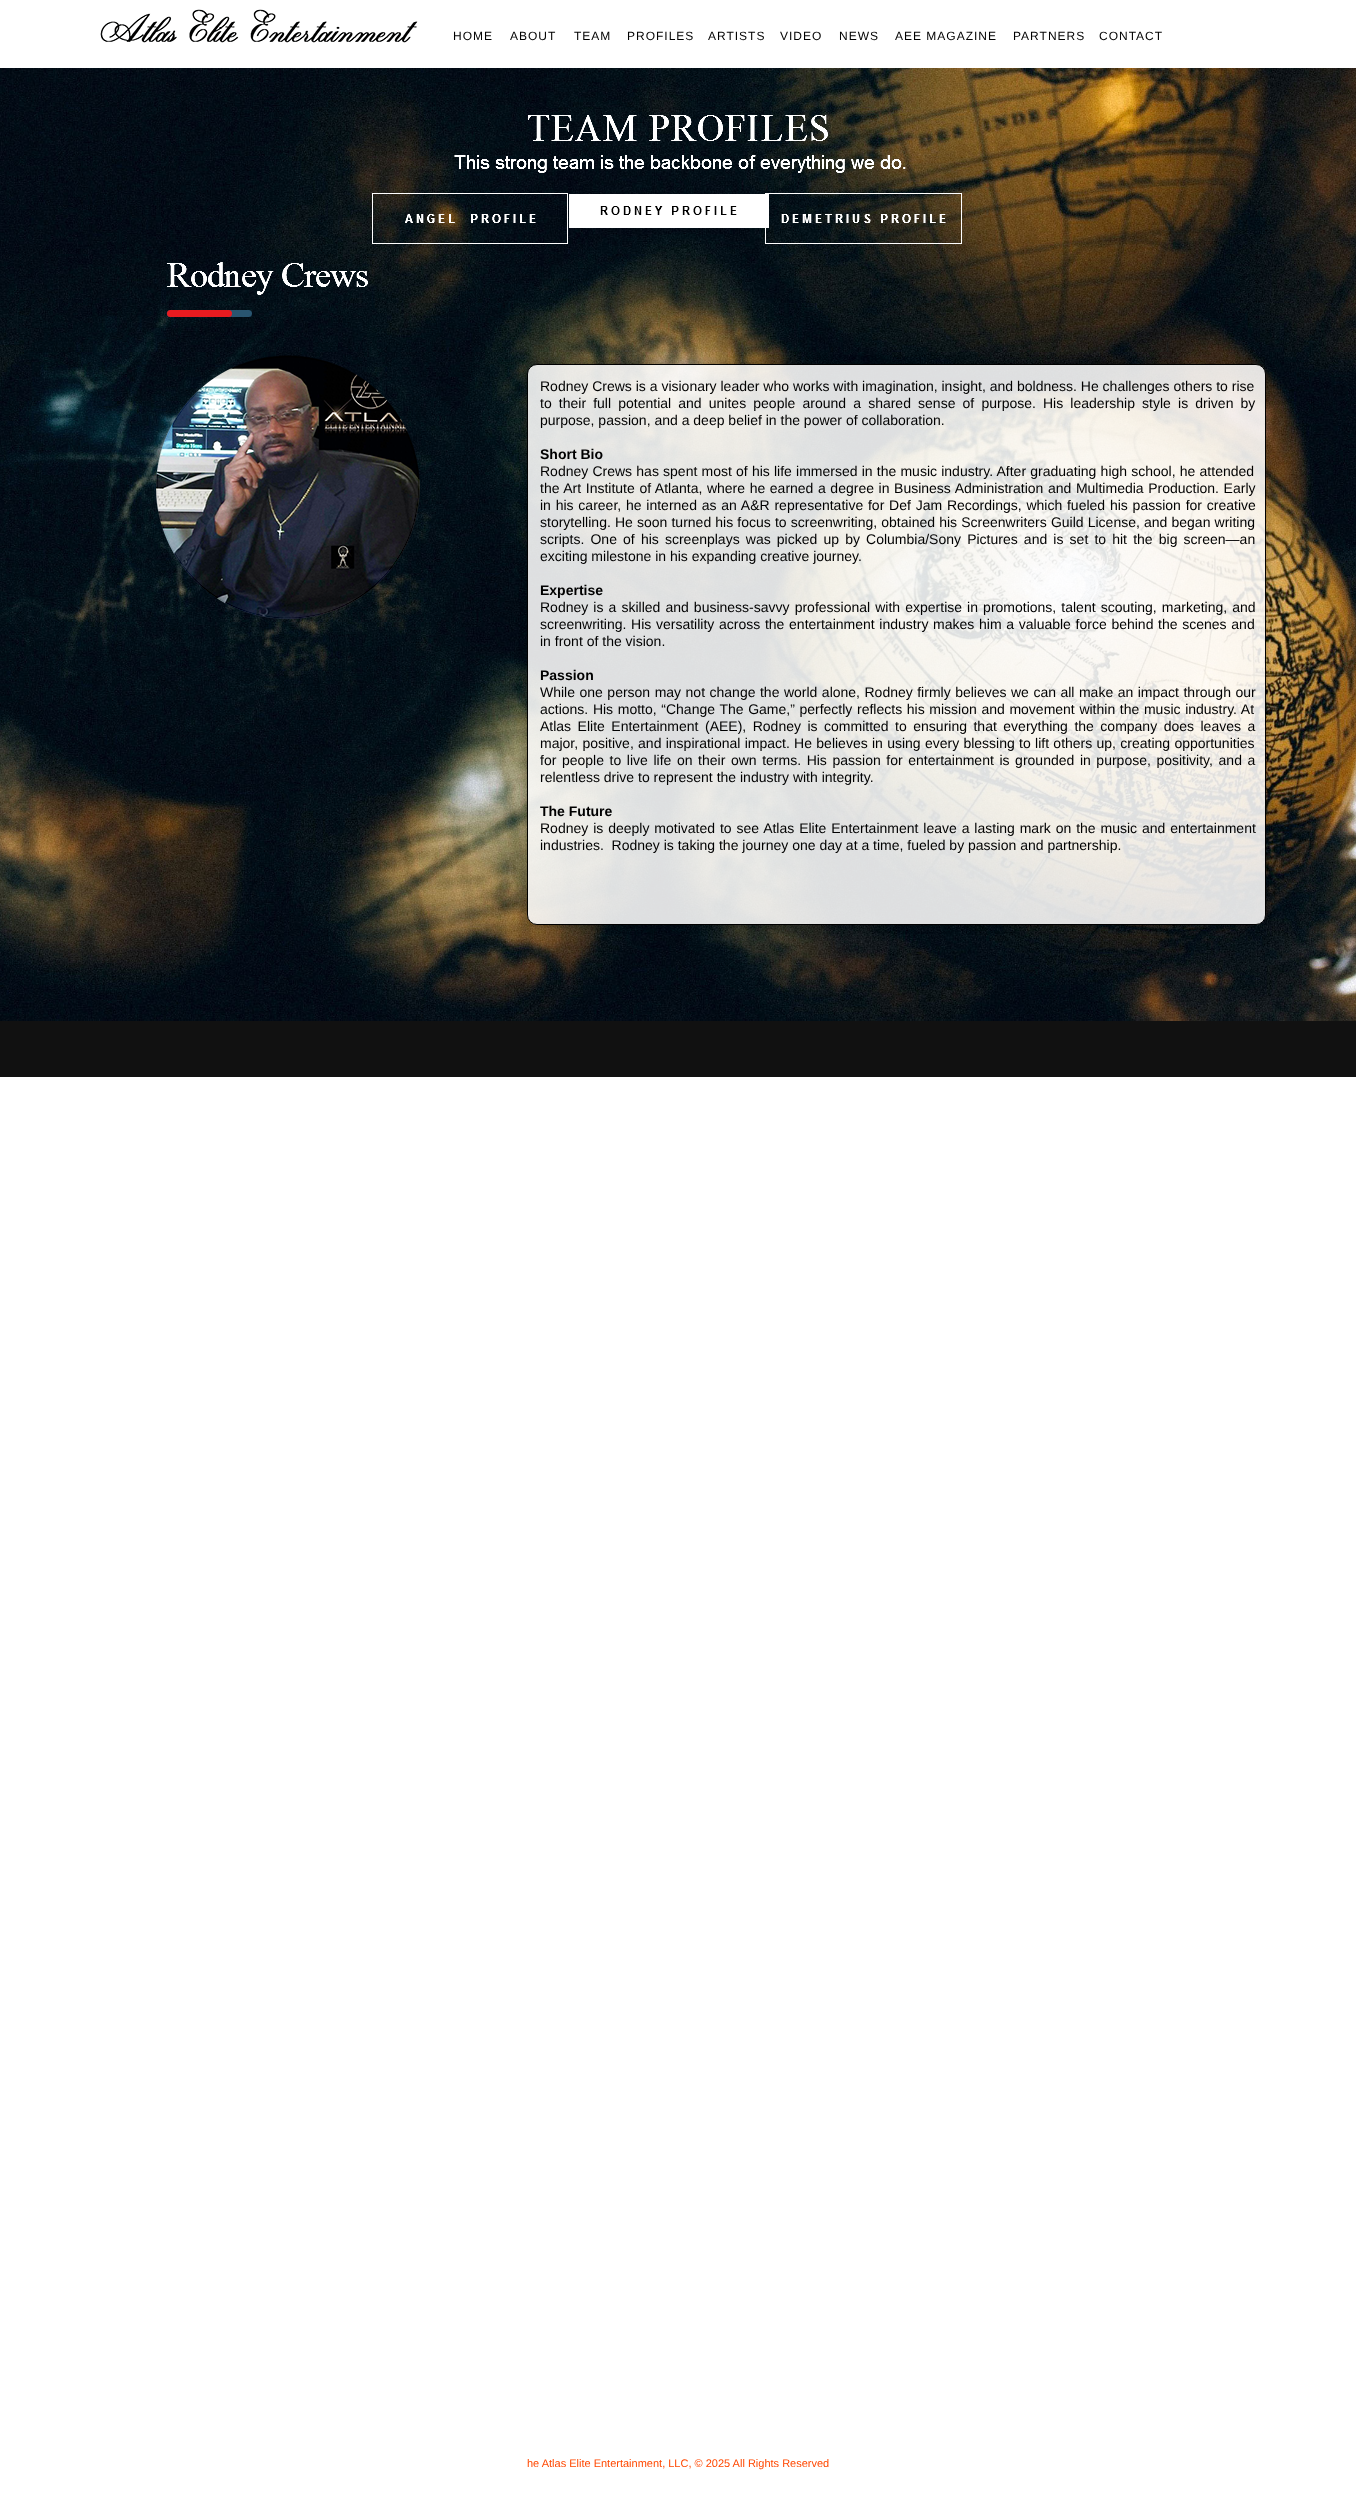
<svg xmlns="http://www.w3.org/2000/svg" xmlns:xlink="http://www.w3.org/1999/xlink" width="1356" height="2494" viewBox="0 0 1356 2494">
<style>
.cls-1{font:12px Liberation Sans;letter-spacing:1px;fill:#000000}
.cls-2{font:14px Liberation Sans;fill:#000000}
.cls-3{font:bold 14px Liberation Sans;fill:#000000}
.cls-4{font:11px Liberation Sans;fill:#ff4800}
</style>
<defs>
<clipPath id="clip1"><path d="M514 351H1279V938H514ZM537 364H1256C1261.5 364 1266 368.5 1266 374V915C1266 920.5 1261.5 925 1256 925H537C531.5 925 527 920.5 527 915V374C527 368.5 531.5 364 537 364Z" clip-rule="evenodd"/></clipPath>
</defs>
<rect width="100%" height="100%" fill="#ffffff"/>
<image xlink:href="image0.png" x="100" y="9" width="318" height="34"/>
<image xlink:href="image1.png" x="0" y="68" width="1356" height="953"/>
<image xlink:href="image2.png" x="528" y="115" width="300" height="26"/>
<image xlink:href="image3.png" x="454" y="155" width="452" height="18"/>
<rect fill="none" stroke="#ffffff" x="372.5" y="193.5" width="195" height="50"/>
<image xlink:href="image4.png" x="405" y="214" width="131" height="9"/>
<rect fill="#ffffff" x="569" y="194" width="200" height="34"/>
<image xlink:href="image5.png" x="600" y="206" width="137" height="9"/>
<rect fill="none" stroke="#ffffff" x="765.5" y="193.5" width="196" height="50"/>
<image xlink:href="image6.png" x="781" y="214" width="165" height="9"/>
<image xlink:href="image7.png" x="167" y="262" width="201" height="33"/>
<rect fill="#295570" x="167" y="310" width="85" height="7" rx="3.5"/>
<rect fill="#e81b20" x="167" y="310" width="65" height="7" rx="3.5"/>
<image xlink:href="image8.png" x="156" y="355" width="264" height="264"/>
<g clip-path="url(#clip1)">
<rect fill="#000000" fill-opacity="0.15" filter="blur(4px)" x="527" y="364" width="739" height="561" rx="10"/>
<rect fill="#000000" fill-opacity="0.15" filter="blur(4px)" x="527" y="364" width="739" height="561" rx="10"/>
</g>
<rect fill="#ffffff" fill-opacity="0.87" stroke="#000000" x="527.5" y="364.5" width="738" height="560" rx="9.5"/>
<rect fill="#111111" x="0" y="1021" width="1356" height="56"/>
<text class="cls-1" x="453" y="40">HOME</text>
<text class="cls-1" x="510" y="40">ABOUT</text>
<text class="cls-1" x="574" y="40">TEAM</text>
<text class="cls-1" x="627" y="40">PROFILES</text>
<text class="cls-1" x="708" y="40">ARTISTS</text>
<text class="cls-1" x="780" y="40">VIDEO</text>
<text class="cls-1" x="839" y="40">NEWS</text>
<text class="cls-1" x="895" y="40">AEE MAGAZINE</text>
<text class="cls-1" x="1013" y="40">PARTNERS</text>
<text class="cls-1" x="1099" y="40">CONTACT</text>
<text class="cls-2"><tspan x="540" y="391">Rodney Crews is a visionary leader who works with imagination, insight, and boldness. He challenges others to rise</tspan><tspan x="540" y="408" word-spacing="3.25">to their full potential and unites people around a shared sense of purpose. His leadership style is driven by</tspan><tspan x="540" y="425">purpose, passion, and a deep belief in the power of collaboration.</tspan></text>
<text class="cls-3" x="540" y="459">Short Bio</text>
<text class="cls-2"><tspan x="540" y="476" word-spacing="0.3">Rodney Crews has spent most of his life immersed in the music industry. After graduating high school, he attended</tspan><tspan x="540" y="493" word-spacing="0.7">the Art Institute of Atlanta, where he earned a degree in Business Administration and Multimedia Production. Early</tspan><tspan x="540" y="510" word-spacing="0.9">in his career, he interned as an A&amp;R representative for Def Jam Recordings, which fueled his passion for creative</tspan><tspan x="540" y="527" word-spacing="0.25">storytelling. He soon turned his focus to screenwriting, obtained his Screenwriters Guild License, and began writing</tspan><tspan x="540" y="544" word-spacing="2.25">scripts. One of his screenplays was picked up by Columbia/Sony Pictures and is set to hit the big screen—an</tspan><tspan x="540" y="561">exciting milestone in his expanding creative journey.</tspan></text>
<text class="cls-3" x="540" y="595">Expertise</text>
<text class="cls-2"><tspan x="540" y="612" word-spacing="1.2">Rodney is a skilled and business-savvy professional with expertise in promotions, talent scouting, marketing, and</tspan><tspan x="540" y="629" word-spacing="0.8">screenwriting. His versatility across the entertainment industry makes him a valuable force behind the scenes and</tspan><tspan x="540" y="646">in front of the vision.</tspan></text>
<text class="cls-3" x="540" y="680">Passion</text>
<text class="cls-2"><tspan x="540" y="697" word-spacing="0.6">While one person may not change the world alone, Rodney firmly believes we can all make an impact through our</tspan><tspan x="540" y="714" word-spacing="0.75">actions. His motto, “Change The Game,” perfectly reflects his mission and movement within the music industry. At</tspan><tspan x="540" y="731" word-spacing="2.6">Atlas Elite Entertainment (AEE), Rodney is committed to ensuring that everything the company does leaves a</tspan><tspan x="540" y="748" word-spacing="0.4">major, positive, and inspirational impact. He believes in using every blessing to lift others up, creating opportunities</tspan><tspan x="540" y="765" word-spacing="1.7">for people to live life on their own terms. His passion for entertainment is grounded in purpose, positivity, and a</tspan><tspan x="540" y="782">relentless drive to represent the industry with integrity.</tspan></text>
<text class="cls-3" x="540" y="816">The Future</text>
<text class="cls-2" xml:space="preserve"><tspan x="540" y="833" word-spacing="1">Rodney is deeply motivated to see Atlas Elite Entertainment leave a lasting mark on the music and entertainment</tspan><tspan x="540" y="850">industries.  Rodney is taking the journey one day at a time, fueled by passion and partnership.</tspan></text>
<text class="cls-4" x="527" y="2467">he Atlas Elite Entertainment, LLC, © 2025 All Rights Reserved</text>
</svg>
